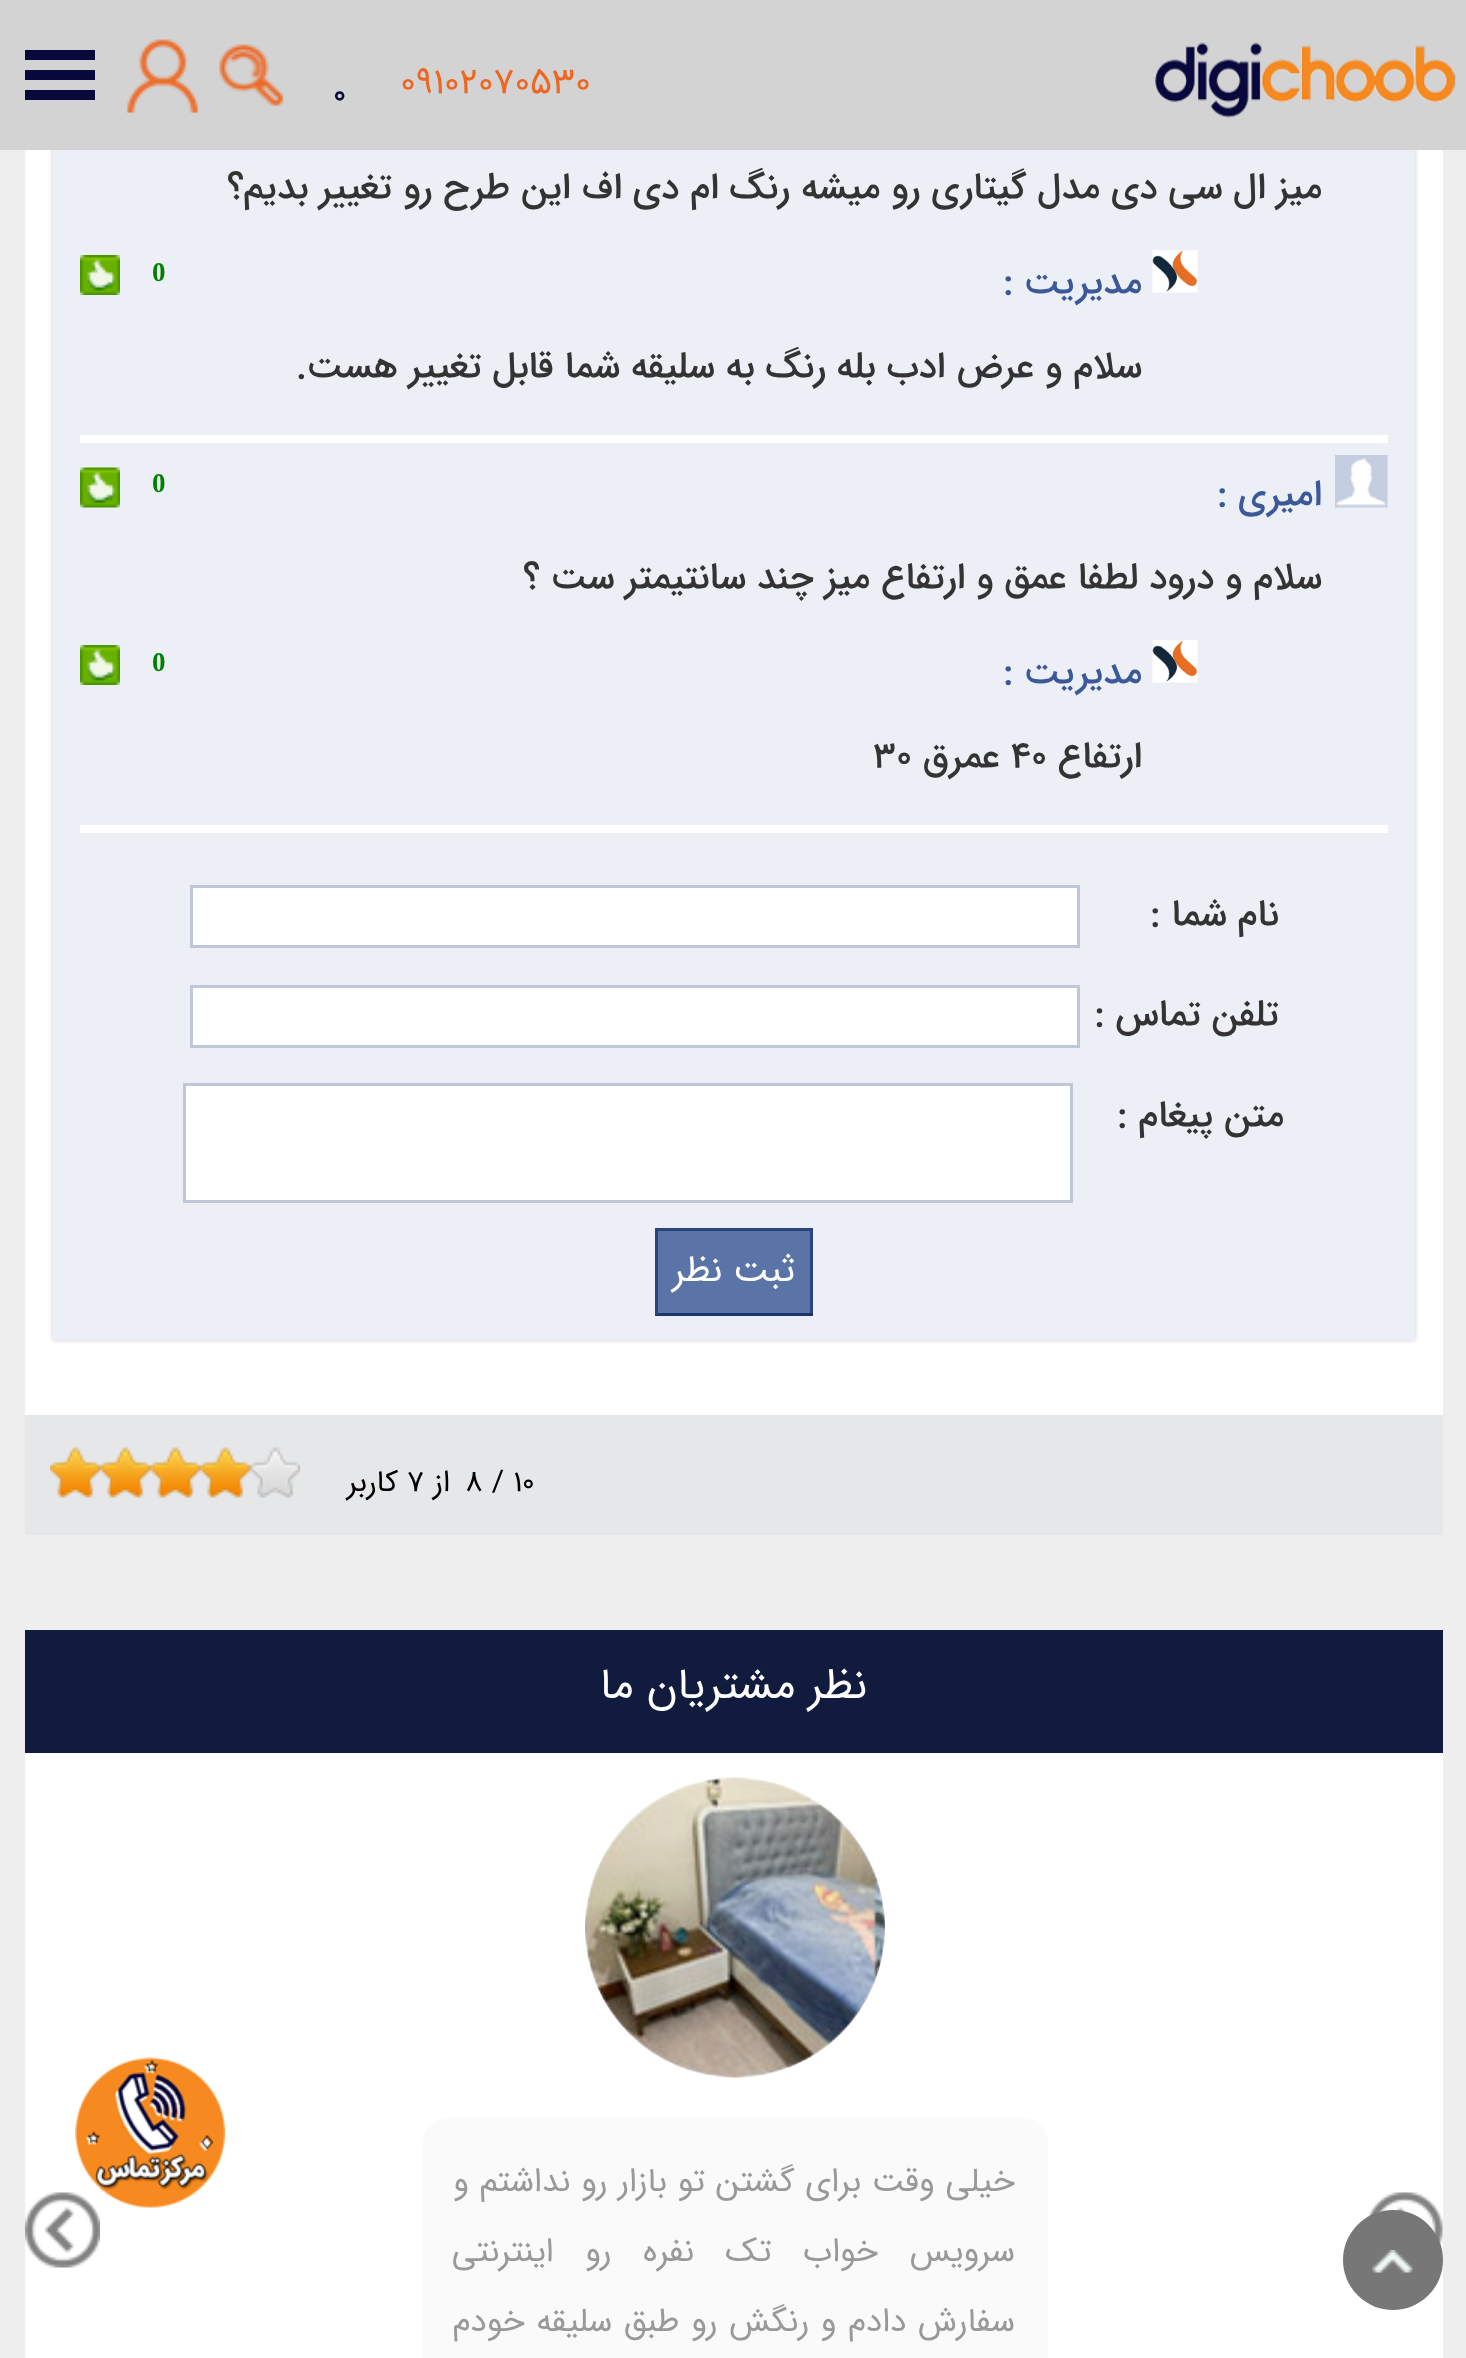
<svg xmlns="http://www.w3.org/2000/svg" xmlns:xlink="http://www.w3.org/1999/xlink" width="1466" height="2358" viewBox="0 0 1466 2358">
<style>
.cls-1{font:36.7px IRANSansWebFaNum;fill:#ed6720}
.cls-2{font:500 30px IRANSansWebFaNum;fill:#09083d}
.cls-3{font:500 36.7px IRANSansWebFaNum;direction:rtl;fill:#333333}
.cls-4{font:500 36.7px IRANSansWebFaNum;direction:rtl;fill:#3b5998}
.cls-5{font:500 36.7px IRANSansWebFaNum;fill:#3b5998}
.cls-6{font:bold 27px Liberation Serif;fill:#008000}
.cls-7{font:500 36.7px IRANSansWebFaNum;fill:#333333}
.cls-8{font:36.7px IRANSansWebFaNum;direction:rtl;fill:#ffffff}
.cls-9{font:30px IRANSansWebFaNum;fill:#000000}
.cls-10{font:30px IRANSansWebFaNum;direction:rtl;fill:#000000}
.cls-11{font:43.25px IRANSansWebFaNum;direction:rtl;fill:#ffffff}
.cls-12{font:33.3px IRANSansWebFaNum;direction:rtl;fill:#999999}
</style>
<rect width="100%" height="100%" fill="#eeeeee"/>
<rect fill="#ffffff" x="25" y="150" width="1418" height="1265"/>
<rect fill="#cccccc" filter="blur(2.5px)" x="53" y="53" width="1362" height="1287"/>
<rect fill="#d3d3d3" x="0" y="0" width="1466" height="150"/>
<image xlink:href="image0.png" x="219" y="44" width="65" height="62"/>
<image xlink:href="image1.png" x="126" y="39" width="73" height="74"/>
<rect fill="#09083d" x="25" y="50" width="70" height="10"/>
<rect fill="#09083d" x="25" y="70" width="70" height="10"/>
<rect fill="#09083d" x="25" y="90" width="70" height="10"/>
<image xlink:href="image2.png" x="1155" y="42" width="301" height="76"/>
<rect fill="#eceff5" x="53" y="150" width="1362" height="1190"/>
<image xlink:href="image3.png" x="1152" y="250" width="46" height="43"/>
<image xlink:href="image4.png" x="80" y="255" width="40" height="40"/>
<rect fill="#ffffff" x="80" y="435" width="1308" height="8"/>
<image xlink:href="image5.png" x="1335" y="455" width="53" height="53"/>
<image xlink:href="image6.png" x="80" y="467" width="40" height="41"/>
<image xlink:href="image3.png" x="1152" y="640" width="46" height="43"/>
<image xlink:href="image4.png" x="80" y="645" width="40" height="40"/>
<rect fill="#ffffff" x="80" y="825" width="1308" height="8"/>
<rect fill="#ffffff" stroke="#bdc7d8" stroke-width="3" x="191.5" y="886.5" width="887" height="60"/>
<rect fill="#ffffff" stroke="#bdc7d8" stroke-width="3" x="191.5" y="986.5" width="887" height="60"/>
<rect fill="#ffffff" stroke="#bdc7d8" stroke-width="3" x="184.5" y="1084.5" width="887" height="117"/>
<rect fill="#5b74a8" x="658" y="1231" width="152" height="82"/>
<rect fill="#29447e" x="655" y="1228" width="158" height="3"/>
<rect fill="#29447e" x="810" y="1228" width="3" height="87"/>
<rect fill="#1a356e" x="655" y="1313" width="158" height="3"/>
<rect fill="#29447e" x="655" y="1228" width="3" height="87"/>
<rect fill="#e6e7e8" x="25" y="1415" width="1418" height="120"/>
<image xlink:href="image7.png" x="50" y="1447" width="250" height="51"/>
<rect fill="#ffffff" x="25" y="1753" width="1418" height="605"/>
<rect fill="#111b3e" x="25" y="1630" width="1418" height="123"/>
<image xlink:href="image8.png" x="585" y="1777" width="300" height="301"/>
<rect fill="#fafafa" x="423" y="2118" width="625" height="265" rx="25"/>
<image xlink:href="image9.png" x="1367" y="2192" width="76" height="54"/>
<image xlink:href="image10.png" x="25" y="2192" width="75" height="76"/>
<image xlink:href="image11.png" x="75" y="2057" width="150" height="151"/>
<circle fill="#777777" cx="1393" cy="2260" r="50"/>
<image xlink:href="image12.png" x="1372" y="2250" width="41" height="23"/>
<text class="cls-1" x="400" y="93">09102070530</text>
<text class="cls-2" x="333" y="103">0</text>
<text class="cls-3" x="1322" y="198">میز ال سی دی مدل گیتاری رو میشه رنگ ام دی اف این طرح رو تغییر بدیم؟</text>
<text class="cls-4" x="1142" y="293">مدیریت</text>
<text class="cls-5" x="1003" y="293">:</text>
<text class="cls-6" x="152" y="281">0</text>
<text class="cls-3" x="1142" y="377">سلام و عرض ادب بله</text>
<text class="cls-3" x="826" y="377">رنگ به سلیقه شما قابل تغییر هست.</text>
<text class="cls-4" x="1322" y="505">امیری</text>
<text class="cls-5" x="1217" y="505">:</text>
<text class="cls-6" x="152" y="492">0</text>
<text class="cls-3" x="1322" y="588">سلام و درود لطفا عمق و ارتفاع میز چند سانتیمتر ست ؟</text>
<text class="cls-4" x="1142" y="683">مدیریت</text>
<text class="cls-5" x="1003" y="683">:</text>
<text class="cls-6" x="152" y="671">0</text>
<text class="cls-3" x="1142" y="767">ارتفاع</text>
<text class="cls-7" x="1011" y="767">40</text>
<text class="cls-3" x="1000" y="767">عمرق</text>
<text class="cls-7" x="873" y="767">30</text>
<text class="cls-3" x="1279" y="925">نام شما :</text>
<text class="cls-3" x="1279" y="1025">تلفن تماس :</text>
<text class="cls-3" x="1284" y="1126">متن پیغام :</text>
<text class="cls-8" x="795" y="1281">ثبت نظر</text>
<text class="cls-9" x="465" y="1491">8 / 10</text>
<text class="cls-10" x="450" y="1491">از</text>
<text class="cls-9" x="407" y="1491">7</text>
<text class="cls-10" x="398" y="1491">کاربر</text>
<text class="cls-11" x="867" y="1698">نظر مشتریان ما</text>
<text class="cls-12" x="1015" y="2191" word-spacing="0.75">خیلی وقت برای گشتن تو بازار رو نداشتم و</text>
<text class="cls-12" x="1015" y="2261" word-spacing="21.5">سرویس خواب تک نفره رو اینترنتی</text>
<text class="cls-12" x="1015" y="2331" word-spacing="1.5">سفارش دادم و رنگش رو طبق سلیقه خودم</text>
</svg>
